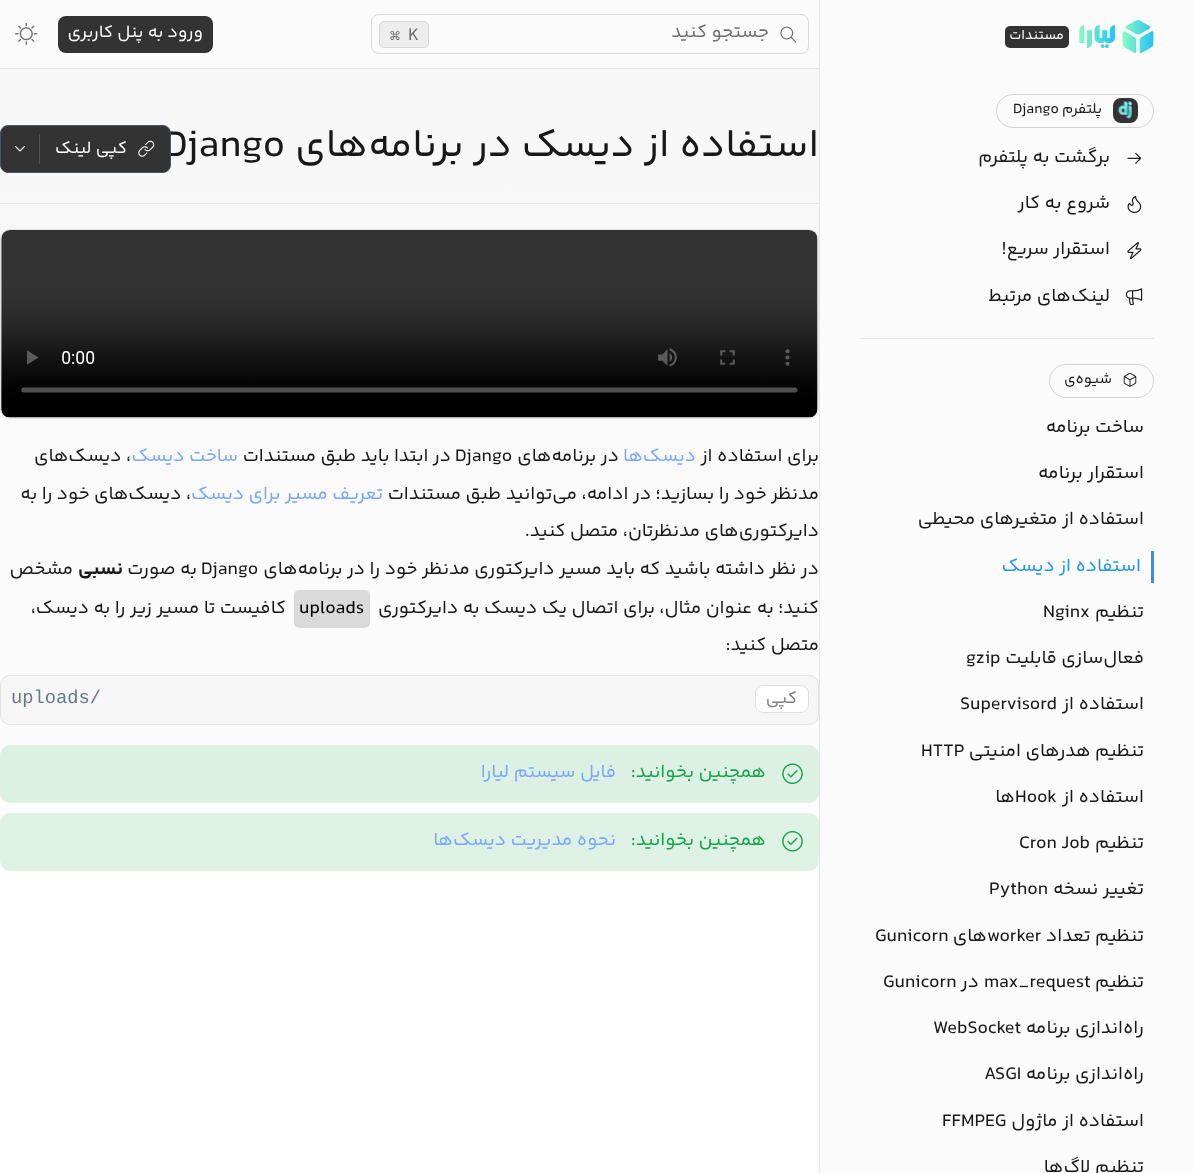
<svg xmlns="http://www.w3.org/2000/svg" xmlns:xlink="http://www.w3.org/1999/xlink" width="1193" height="1173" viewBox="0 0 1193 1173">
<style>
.cls-1{font:18.75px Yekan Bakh;direction:rtl;fill:#707070}
.cls-2{font:18.75px Yekan Bakh;fill:#707070}
.cls-3{font:12px DejaVu Sans;fill:#707070}
.cls-4{font:17.5px Yekan Bakh;direction:rtl;fill:#ffffff}
.cls-5{font:14px Yekan Bakh;direction:rtl;fill:#ffffff}
.cls-6{font:15px Yekan Bakh;direction:rtl;fill:#181818}
.cls-7{font:15px Yekan Bakh;fill:#181818}
.cls-8{font:18.75px Yekan Bakh;direction:rtl;fill:#181818}
.cls-9{font:18.75px Yekan Bakh;direction:rtl;fill:#2196f3}
.cls-10{font:18.75px Yekan Bakh;fill:#181818}
.cls-11{font:40px Yekan Bakh;direction:rtl;fill:#181818}
.cls-12{font:40px Yekan Bakh;fill:#181818}
.cls-13{font:18.75px Yekan Bakh;direction:rtl;fill:#7ba8fa}
.cls-14{font:bold 18.75px Yekan Bakh;direction:rtl;fill:#181818}
.cls-15{font:18.75px Yekan Bakh;fill:#000000}
.cls-16{font:17.5px Yekan Bakh;direction:rtl;fill:#808080}
.cls-17{font:18.75px Liberation Mono;fill:#657b83}
.cls-18{font:18.75px Yekan Bakh;direction:rtl;fill:#16a34a}
</style>
<defs>
<linearGradient id="g1" gradientUnits="userSpaceOnUse" x1="597" y1="0" x2="597" y2="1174"><stop offset="0" stop-color="#f6f6f6"/><stop offset="1" stop-color="#ffffff"/></linearGradient>
</defs>
<rect width="100%" height="100%" fill="#ffffff"/>
<rect fill="url(#g1)" x="0" y="69" width="819" height="779"/>
<rect fill="#fbfbfb" x="0" y="0" width="819" height="68"/>
<rect fill="#e6e6e6" x="0" y="68" width="819" height="1"/>
<rect fill="none" stroke="#dadada" x="371.5" y="14.5" width="437" height="39" rx="7.5"/>
<image xlink:href="image0.png" x="780" y="26" width="17" height="17"/>
<rect fill="#ededed" stroke="#d7d7d7" x="379.5" y="21.5" width="49" height="26" rx="4.5"/>
<rect fill="#333333" x="58" y="16" width="155" height="37" rx="8"/>
<image xlink:href="image1.png" x="15" y="23" width="23" height="22"/>
<rect fill="#fbfbfb" x="820" y="0" width="373" height="1173"/>
<rect fill="#e6e6e6" x="819" y="0" width="1" height="1173"/>
<image xlink:href="image2.png" x="1079" y="20" width="75" height="34"/>
<rect fill="#333333" x="1005" y="26" width="64" height="22" rx="5"/>
<rect fill="none" stroke="#d4d4d4" x="996.5" y="94.5" width="157" height="33" rx="16.5"/>
<rect fill="#333333" x="1113" y="98" width="25" height="25" rx="8"/>
<image xlink:href="image3.png" x="1117" y="100" width="15" height="19"/>
<image xlink:href="image4.png" x="1127" y="152" width="15" height="12"/>
<image xlink:href="image5.png" x="1127" y="195" width="15" height="18"/>
<image xlink:href="image6.png" x="1127" y="242" width="15" height="18"/>
<image xlink:href="image7.png" x="1125" y="288" width="18" height="18"/>
<rect fill="#e5e7eb" x="860" y="338" width="294" height="1"/>
<rect fill="none" stroke="#d4d4d4" x="1049.5" y="364.5" width="104" height="33" rx="16.5"/>
<image xlink:href="image8.png" x="1123" y="373" width="14" height="14"/>
<rect fill="#2196f3" x="1151" y="551" width="3" height="32"/>
<rect fill="#e5e7eb" x="0" y="203" width="819" height="1"/>
<rect fill="none" stroke="#e4e4e4" x="0.5" y="229.5" width="818" height="189" rx="9.5"/>
<image xlink:href="image11.png" x="1" y="230" width="817" height="188"/>
<rect fill="#dadada" x="294" y="590" width="76" height="38" rx="5"/>
<rect fill="#f6f6f6" x="0" y="675" width="819" height="50" rx="10"/>
<rect fill="none" stroke="#000000" stroke-opacity="0.08" x="0.5" y="675.5" width="818" height="49" rx="9.5"/>
<rect fill="#ffffff" x="755" y="685" width="54" height="28" rx="8"/>
<rect fill="none" stroke="#000000" stroke-opacity="0.13" x="755.5" y="685.5" width="53" height="27" rx="7.5"/>
<rect fill="#ddf0e4" x="0" y="745" width="819" height="58" rx="10"/>
<image xlink:href="image12.png" x="782" y="763" width="21" height="22"/>
<rect fill="#def1e5" x="0" y="813" width="819" height="58" rx="10"/>
<image xlink:href="image13.png" x="782" y="830" width="21" height="22"/>
<text class="cls-1" x="769" y="37">جستجو کنید</text>
<text class="cls-2" x="408" y="40">K</text>
<text class="cls-3" x="389" y="40">⌘</text>
<text class="cls-4" x="203" y="37">ورود به پنل کاربری</text>
<text class="cls-5" x="1064" y="39">مستندات</text>
<text class="cls-6" x="1102" y="113">پلتفرم</text>
<text class="cls-7" x="1013" y="113">Django</text>
<text class="cls-8" x="1110" y="162">برگشت به پلتفرم</text>
<text class="cls-8" x="1110" y="208">شروع به کار</text>
<text class="cls-8" x="1110" y="254">استقرار سریع!</text>
<text class="cls-8" x="1110" y="301">لینک‌های مرتبط</text>
<text class="cls-6" x="1112" y="383">شیوه‌ی</text>
<text class="cls-8" x="1144" y="432">ساخت برنامه</text>
<text class="cls-8" x="1144" y="478">استقرار برنامه</text>
<text class="cls-8" x="1144" y="524">استفاده از متغیرهای محیطی</text>
<text class="cls-9" x="1141" y="571">استفاده از دیسک</text>
<text class="cls-8" x="1144" y="617">تنظیم</text>
<text class="cls-10" x="1043" y="617">Nginx</text>
<text class="cls-8" x="1144" y="663">فعال‌سازی قابلیت</text>
<text class="cls-10" x="966" y="663">gzip</text>
<text class="cls-8" x="1144" y="709">استفاده از</text>
<text class="cls-10" x="960" y="709">Supervisord</text>
<text class="cls-8" x="1144" y="756">تنظیم هدرهای امنیتی</text>
<text class="cls-10" x="921" y="756">HTTP</text>
<text class="cls-8" x="1144" y="802">استفاده از</text>
<text class="cls-10" x="1015" y="802">Hook</text>
<text class="cls-8" x="1015" y="802">ها</text>
<text class="cls-8" x="1144" y="848">تنظیم</text>
<text class="cls-10" x="1019" y="848">Cron Job</text>
<text class="cls-8" x="1144" y="894">تغییر نسخه</text>
<text class="cls-10" x="989" y="894">Python</text>
<text class="cls-8" x="1144" y="941">تنظیم تعداد</text>
<text class="cls-10" x="987" y="941">worker</text>
<text class="cls-8" x="987" y="941">های</text>
<text class="cls-10" x="875" y="941">Gunicorn</text>
<text class="cls-8" x="1144" y="987">تنظیم</text>
<text class="cls-10" x="984" y="987">max_request</text>
<text class="cls-8" x="979" y="987">در</text>
<text class="cls-10" x="883" y="987">Gunicorn</text>
<text class="cls-8" x="1144" y="1033">راه‌اندازی برنامه</text>
<text class="cls-10" x="933" y="1033">WebSocket</text>
<text class="cls-8" x="1144" y="1079">راه‌اندازی برنامه</text>
<text class="cls-10" x="984" y="1079">ASGI</text>
<text class="cls-8" x="1144" y="1126">استفاده از ماژول</text>
<text class="cls-10" x="942" y="1126">FFMPEG</text>
<text class="cls-8" x="1144" y="1172">تنظیم لاگ‌ها</text>
<text class="cls-11" x="819" y="156">استفاده از دیسک در برنامه‌های</text>
<text class="cls-12" x="163" y="156">Django</text>
<rect fill="#333333" stroke="#4b5563" x="0.5" y="125.5" width="170" height="47" rx="7.5"/>
<image xlink:href="image9.png" x="138" y="140" width="17" height="17"/>
<text class="cls-4" x="127" y="153">کپی لینک</text>
<rect fill="#4b5563" x="39" y="134" width="1" height="30"/>
<image xlink:href="image10.png" x="14" y="145" width="12" height="7"/>
<text class="cls-8" x="819" y="461">برای استفاده از</text>
<text class="cls-13" x="696" y="461">دیسک‌ها</text>
<text class="cls-8" x="619" y="461">در برنامه‌های</text>
<text class="cls-10" x="455" y="461">Django</text>
<text class="cls-8" x="451" y="461">در ابتدا باید طبق مستندات</text>
<text class="cls-13" x="238" y="461">ساخت دیسک</text>
<text class="cls-8" x="131" y="461">، دیسک‌های</text>
<text class="cls-8" x="819" y="499">مدنظر خود را بسازید؛ در ادامه، می‌توانید طبق مستندات</text>
<text class="cls-13" x="383" y="499">تعریف مسیر برای دیسک</text>
<text class="cls-8" x="191" y="499">، دیسک‌های خود را به</text>
<text class="cls-8" x="819" y="536">دایرکتوری‌های مدنظرتان، متصل کنید.</text>
<text class="cls-8" x="819" y="574">در نظر داشته باشید که باید مسیر دایرکتوری مدنظر خود را در برنامه‌های</text>
<text class="cls-10" x="201" y="574">Django</text>
<text class="cls-8" x="197" y="574">به صورت</text>
<text class="cls-14" x="123" y="574">نسبی</text>
<text class="cls-8" x="73" y="574">مشخص</text>
<text class="cls-8" x="819" y="613">کنید؛ به عنوان مثال، برای اتصال یک دیسک به دایرکتوری</text>
<text class="cls-15" x="299" y="613">uploads</text>
<text class="cls-8" x="286" y="613">کافیست تا مسیر زیر را به دیسک،</text>
<text class="cls-8" x="819" y="650">متصل کنید:</text>
<text class="cls-16" x="797" y="703">کپی</text>
<text class="cls-17" x="11" y="703">uploads/</text>
<text class="cls-18" x="766" y="777">همچنین بخوانید:</text>
<text class="cls-13" x="616" y="777">فایل سیستم لیارا</text>
<text class="cls-18" x="766" y="845">همچنین بخوانید:</text>
<text class="cls-13" x="616" y="845">نحوه مدیریت دیسک‌ها</text>
</svg>
